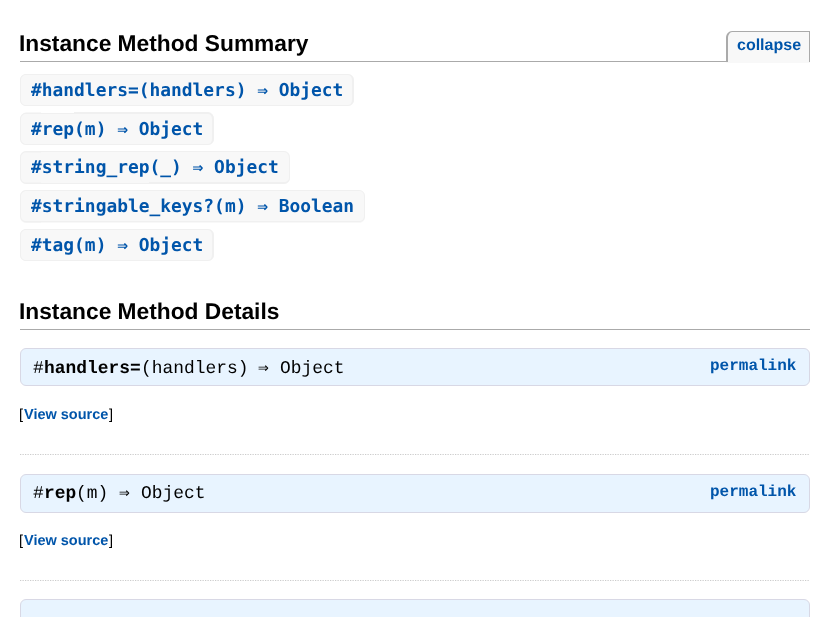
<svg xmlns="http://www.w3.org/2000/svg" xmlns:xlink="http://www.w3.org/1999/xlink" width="829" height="617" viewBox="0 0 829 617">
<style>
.cls-1{font:bold 22.75px Liberation Sans;fill:#000000}
.cls-2{font:bold 16px Liberation Sans;fill:#0055aa}
.cls-3{font:bold 17.9px DejaVu Sans Mono;fill:#0055aa}
.cls-4{font:17.9px Liberation Mono;fill:#000000}
.cls-5{font:bold 17.9px Liberation Mono;fill:#000000}
.cls-6{font:17.9px DejaVu Sans Mono;fill:#000000}
.cls-7{font:bold 16px Liberation Mono;fill:#0055aa}
.cls-8{font:14.5px Liberation Sans;fill:#000000}
.cls-9{font:bold 14.5px Liberation Sans;fill:#0055aa}
</style>
<rect width="100%" height="100%" fill="#ffffff"/>
<rect fill="#aaaaaa" x="20" y="61" width="706" height="1"/>
<path fill="#f8f8f8" d="M732 31H810V63H726V37C726 33.5 728.5 31 732 31Z"/>
<path fill="#aaaaaa" fill-rule="evenodd" d="M732 31H810V62H726V38C726 34 729 31 732 31ZM732 32H809V62H728V38C728 35 730 32 732 32Z"/>
<path fill="#f8f8f8" d="M26 74H41V106H26C22.5 106 20 103.5 20 100V80C20 76.5 22.5 74 26 74Z"/>
<path fill="#f0f0f0" fill-rule="evenodd" d="M26 74H41V106H26C23 106 20 103.5 20 100V80C20 76.5 23 74 26 74ZM26 75H41V105H26C23.5 105 21 103 21 100V80C21 77 23.5 75 26 75Z"/>
<rect fill="#f8f8f8" x="41" y="75" width="98" height="30"/>
<rect fill="#f0f0f0" x="41" y="74" width="98" height="1"/>
<rect fill="#f0f0f0" x="41" y="105" width="98" height="1"/>
<path fill="#f8f8f8" d="M139 74H348C351.5 74 354 76.5 354 80V100C354 103.5 351.5 106 348 106H139Z"/>
<path fill="#f0f0f0" fill-rule="evenodd" d="M139 74H348C351 74 354 77 354 80V100C354 103 351 106 348 106H139ZM139 75H348C350 75 352 77 352 80V100C352 103 350 105 348 105H139Z"/>
<path fill="#f8f8f8" d="M26 113H41V145H26C22.5 145 20 142.5 20 139V119C20 115.5 22.5 113 26 113Z"/>
<path fill="#f0f0f0" fill-rule="evenodd" d="M26 112.5H41V145H26C23 145 20 142 20 139V119C20 115.5 23 112.5 26 112.5ZM26 114H41V144H26C23.5 144 21 141.5 21 139V119C21 116 23.5 114 26 114Z"/>
<rect fill="#f8f8f8" x="41" y="114" width="33" height="30"/>
<rect fill="#f0f0f0" x="41" y="113" width="33" height="1"/>
<rect fill="#f0f0f0" x="41" y="144" width="33" height="1"/>
<path fill="#f8f8f8" d="M74 113H208C211.5 113 214 115.5 214 119V139C214 142.5 211.5 145 208 145H74Z"/>
<path fill="#f0f0f0" fill-rule="evenodd" d="M74 112H208C211 112 214 115 214 119V139C214 142 211 145 208 145H74ZM74 114H208C210 114 212 116 212 119V139C212 142 210 144 208 144H74Z"/>
<path fill="#f8f8f8" d="M26 151H41V184H26C22.5 184 20 181.5 20 178V157C20 153.5 22.5 151 26 151Z"/>
<path fill="#f0f0f0" fill-rule="evenodd" d="M26 151H41V184H26C23 184 20 181 20 177.5V157.5C20 154 23 151 26 151ZM26 152.5H41V182.5H26C23.5 182.5 21 180.5 21 177.5V157.5C21 154.5 23.5 152.5 26 152.5Z"/>
<rect fill="#f8f8f8" x="41" y="152" width="108" height="31"/>
<rect fill="#f0f0f0" x="41" y="151" width="108" height="1"/>
<rect fill="#f0f0f0" x="41" y="183" width="108" height="1"/>
<path fill="#f8f8f8" d="M149 151H284C287.5 151 290 153.5 290 157V178C290 181.5 287.5 184 284 184H149Z"/>
<path fill="#f0f0f0" fill-rule="evenodd" d="M149 151H284C287 151 290 154 290 158V178C290 181 287 184 284 184H149ZM149 152H284C287 152 289 155 289 158V178C289 180 287 182 284 182H149Z"/>
<path fill="#f8f8f8" d="M26 190H41V223H26C22.5 223 20 220.5 20 217V196C20 192.5 22.5 190 26 190Z"/>
<path fill="#f0f0f0" fill-rule="evenodd" d="M26 190H41V222.5H26C23 222.5 20 219.5 20 216V196C20 193 23 190 26 190ZM26 191H41V221H26C23.5 221 21 219 21 216V196C21 193.5 23.5 191 26 191Z"/>
<rect fill="#f8f8f8" x="41" y="191" width="173" height="32"/>
<rect fill="#f0f0f0" x="41" y="190" width="173" height="1"/>
<rect fill="#f0f0f0" x="41" y="221" width="173" height="1"/>
<path fill="#f8f8f8" d="M214 190H359C362.5 190 365 192.5 365 196V217C365 220.5 362.5 223 359 223H214Z"/>
<path fill="#f0f0f0" fill-rule="evenodd" d="M214 190H359C362 190 365 193 365 196V216C365 220 362 222 359 222H214ZM214 191H359C362 191 364 193 364 196V216C364 219 362 221 359 221H214Z"/>
<path fill="#f8f8f8" d="M26 229H41V261H26C22.5 261 20 258.5 20 255V235C20 231.5 22.5 229 26 229Z"/>
<path fill="#f0f0f0" fill-rule="evenodd" d="M26 229H41V261H26C23 261 20 258.5 20 255V235C20 231.5 23 229 26 229ZM26 230H41V260H26C23.5 260 21 258 21 255V235C21 232 23.5 230 26 230Z"/>
<rect fill="#f8f8f8" x="41" y="230" width="33" height="30"/>
<rect fill="#f0f0f0" x="41" y="229" width="33" height="1"/>
<rect fill="#f0f0f0" x="41" y="260" width="33" height="1"/>
<path fill="#f8f8f8" d="M74 229H208C211.5 229 214 231.5 214 235V255C214 258.5 211.5 261 208 261H74Z"/>
<path fill="#f0f0f0" fill-rule="evenodd" d="M74 229H208C211 229 214 232 214 235V255C214 258 211 261 208 261H74ZM74 230H208C210 230 212 232 212 235V255C212 258 210 260 208 260H74Z"/>
<rect fill="#aaaaaa" x="20" y="329" width="790" height="1"/>
<rect fill="#e8f4ff" stroke="#d8d8e5" x="20.5" y="348.5" width="789" height="37" rx="5.5"/>
<path fill="none" stroke="#cccccc" stroke-width="1.2" stroke-dasharray="1.25 1.25" d="M20 454.5H810"/>
<rect fill="#e8f4ff" stroke="#d8d8e5" x="20.5" y="474.5" width="789" height="38" rx="5.5"/>
<path fill="none" stroke="#cccccc" stroke-width="1.2" stroke-dasharray="1.25 1.25" d="M20 580.5H810"/>
<rect fill="#e8f4ff" stroke="#d8d8e5" x="20.5" y="599.5" width="789" height="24" rx="5.5"/>
<text class="cls-1" x="19" y="51">Instance Method Summary</text>
<text class="cls-2" x="737" y="50">collapse</text>
<text class="cls-3" x="31" y="96">#handlers=(handlers) ⇒ Object</text>
<text class="cls-3" x="31" y="135">#rep(m) ⇒ Object</text>
<text class="cls-3" x="31" y="173">#string_rep(_) ⇒ Object</text>
<text class="cls-3" x="31" y="212">#stringable_keys?(m) ⇒ Boolean</text>
<text class="cls-3" x="31" y="251">#tag(m) ⇒ Object</text>
<text class="cls-1" x="19" y="319">Instance Method Details</text>
<text class="cls-4" x="33" y="373">#</text>
<text class="cls-5" x="44" y="373">handlers=</text>
<text class="cls-4" x="141" y="373">(handlers)</text>
<text class="cls-6" x="258" y="373">⇒</text>
<text class="cls-4" x="280" y="373">Object</text>
<text class="cls-7" x="710" y="370">permalink</text>
<text class="cls-8" x="19" y="419">[</text>
<text class="cls-9" x="24" y="419">View source</text>
<text class="cls-8" x="109" y="419">]</text>
<text class="cls-4" x="33" y="498">#</text>
<text class="cls-5" x="44" y="498">rep</text>
<text class="cls-4" x="76" y="498">(m)</text>
<text class="cls-6" x="119" y="498">⇒</text>
<text class="cls-4" x="141" y="498">Object</text>
<text class="cls-7" x="710" y="496">permalink</text>
<text class="cls-8" x="19" y="545">[</text>
<text class="cls-9" x="24" y="545">View source</text>
<text class="cls-8" x="109" y="545">]</text>
</svg>
